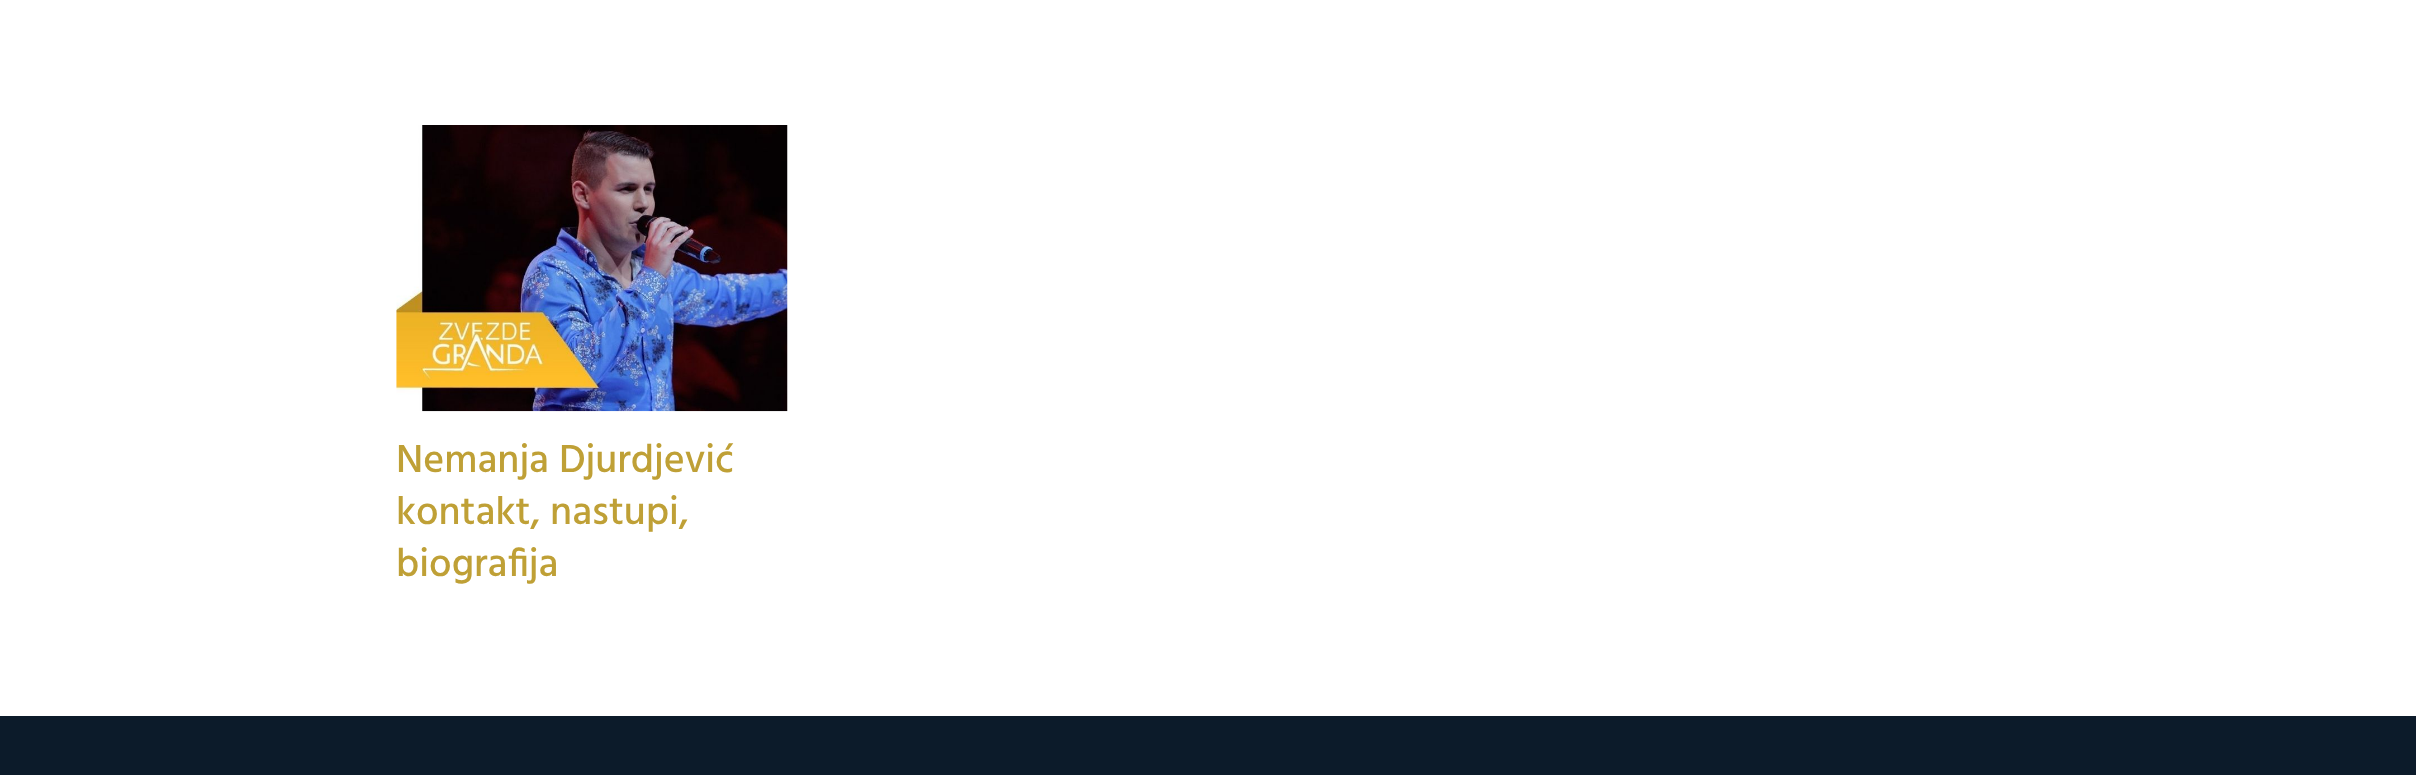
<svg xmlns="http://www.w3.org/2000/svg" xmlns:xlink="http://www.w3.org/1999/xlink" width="2416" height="775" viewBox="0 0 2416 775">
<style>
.cls-1{font:500 40px Hind;fill:#bfa036}
</style>
<rect width="100%" height="100%" fill="#ffffff"/>
<image xlink:href="image0.png" x="396" y="125" width="392" height="287"/>
<rect fill="#0c1b2a" x="0" y="716" width="2416" height="59"/>
<text class="cls-1"><tspan x="396" y="472">Nemanja Djurdjević</tspan><tspan x="396" y="524">kontakt, nastupi,</tspan><tspan x="396" y="576">biografija</tspan></text>
</svg>
